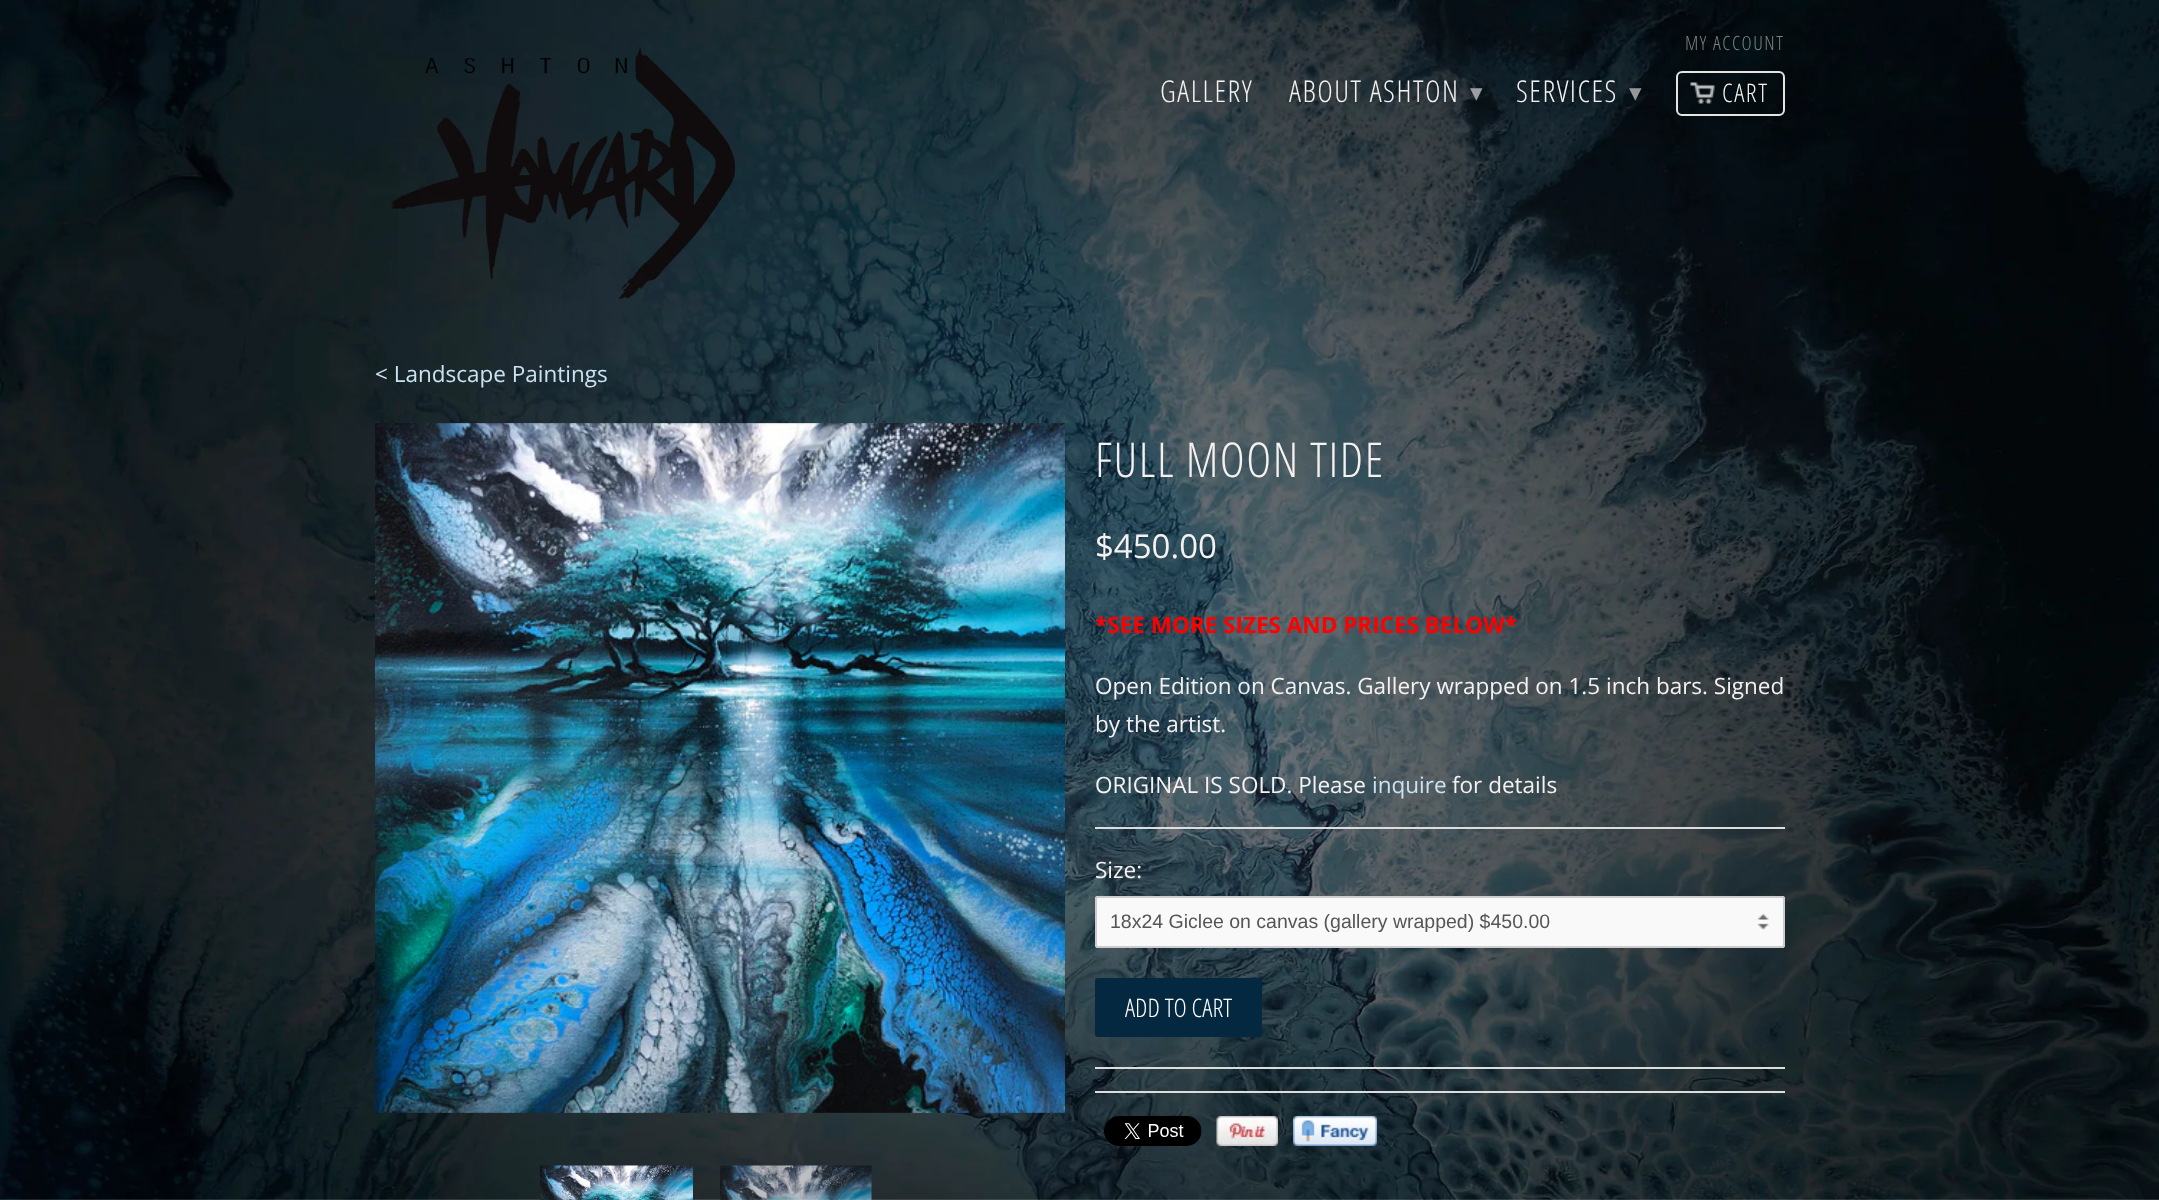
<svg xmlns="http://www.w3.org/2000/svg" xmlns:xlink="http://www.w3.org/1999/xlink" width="2159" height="1200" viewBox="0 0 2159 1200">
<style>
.cls-1{font:300 19.5px Open Sans Condensed;letter-spacing:1.5px;fill:#808080}
.cls-2{font:300 30px Open Sans Condensed;letter-spacing:1.5px;fill:#f6f1f1}
.cls-3{font:25px DejaVu Sans;letter-spacing:1.5px;fill:#9d9ea1}
.cls-4{font:25px DejaVu Sans;letter-spacing:1.5px;fill:#96979a}
.cls-5{font:300 25.5px Open Sans Condensed;letter-spacing:1.5px;fill:#f6f1f1}
.cls-6{font:22.5px Open Sans;fill:#c9e2f4}
.cls-7{font:300 48px Open Sans Condensed;letter-spacing:1.5px;fill:#f6f1f1}
.cls-8{font:33px Open Sans;fill:#f6f1f1}
.cls-9{font:bold 22.5px Open Sans;fill:#ff0000}
.cls-10{font:22.5px Open Sans;fill:#f6f1f1}
.cls-11{font:19.5px Liberation Sans;fill:#555555}
.cls-12{font:300 25.5px Open Sans Condensed;fill:#ffffff}
</style>
<rect width="100%" height="100%" fill="#ffffff"/>
<image xlink:href="image0.png" x="0" y="0" width="2159" height="1200"/>
<image xlink:href="image1.png" x="391" y="47" width="345" height="253"/>
<image xlink:href="image2.png" x="1690" y="82" width="25" height="22"/>
<rect fill="none" stroke="#e4e4e4" stroke-width="2" x="1677" y="72" width="107" height="43" rx="5"/>
<image xlink:href="image3.png" x="375" y="423" width="690" height="690"/>
<image xlink:href="image4.png" x="540" y="1165" width="153" height="35"/>
<image xlink:href="image5.png" x="720" y="1165" width="152" height="35"/>
<rect fill="#dddddd" x="1095" y="827" width="690" height="2"/>
<rect fill="#f9f9f9" x="1095" y="896" width="690" height="52" rx="3"/>
<image xlink:href="image6.png" x="1757" y="913" width="12" height="17"/>
<rect fill="none" stroke="#cccccc" stroke-width="2" x="1096" y="897" width="688" height="50" rx="2"/>
<rect fill="#042840" x="1095" y="978" width="167" height="59" rx="3"/>
<rect fill="#dddddd" x="1095" y="1067" width="690" height="2"/>
<rect fill="#dddddd" x="1095" y="1091" width="690" height="2"/>
<image xlink:href="image7.png" x="1104" y="1116" width="98" height="30"/>
<image xlink:href="image8.png" x="1216" y="1116" width="62" height="30"/>
<image xlink:href="image9.png" x="1293" y="1116" width="84" height="30"/>
<text class="cls-1" x="1685" y="50">MY ACCOUNT</text>
<text class="cls-2" x="1160" y="102">GALLERY</text>
<text class="cls-2" x="1289" y="102">ABOUT ASHTON</text>
<text class="cls-3" x="1470" y="101">▾</text>
<text class="cls-2" x="1516" y="102">SERVICES</text>
<text class="cls-4" x="1629" y="101">▾</text>
<text class="cls-5" x="1722" y="102">CART</text>
<text class="cls-6" x="375" y="382">&lt; Landscape Paintings</text>
<text class="cls-7" x="1095" y="477">FULL MOON TIDE</text>
<text class="cls-8" x="1095" y="558">$450.00</text>
<text class="cls-9" x="1095" y="633">*SEE MORE SIZES AND PRICES BELOW*</text>
<text class="cls-10"><tspan x="1095" y="694">Open Edition on Canvas. Gallery wrapped on 1.5 inch bars. Signed</tspan><tspan x="1095" y="732">by the artist.</tspan></text>
<text class="cls-10" x="1095" y="793">ORIGINAL IS SOLD. Please</text>
<text class="cls-6" x="1372" y="793">inquire</text>
<text class="cls-10" x="1452" y="793">for details</text>
<text class="cls-10" x="1095" y="878">Size:</text>
<text class="cls-11" x="1110" y="928">18x24 Giclee on canvas (gallery wrapped) $450.00</text>
<text class="cls-12" x="1125" y="1017">ADD TO CART</text>
</svg>
